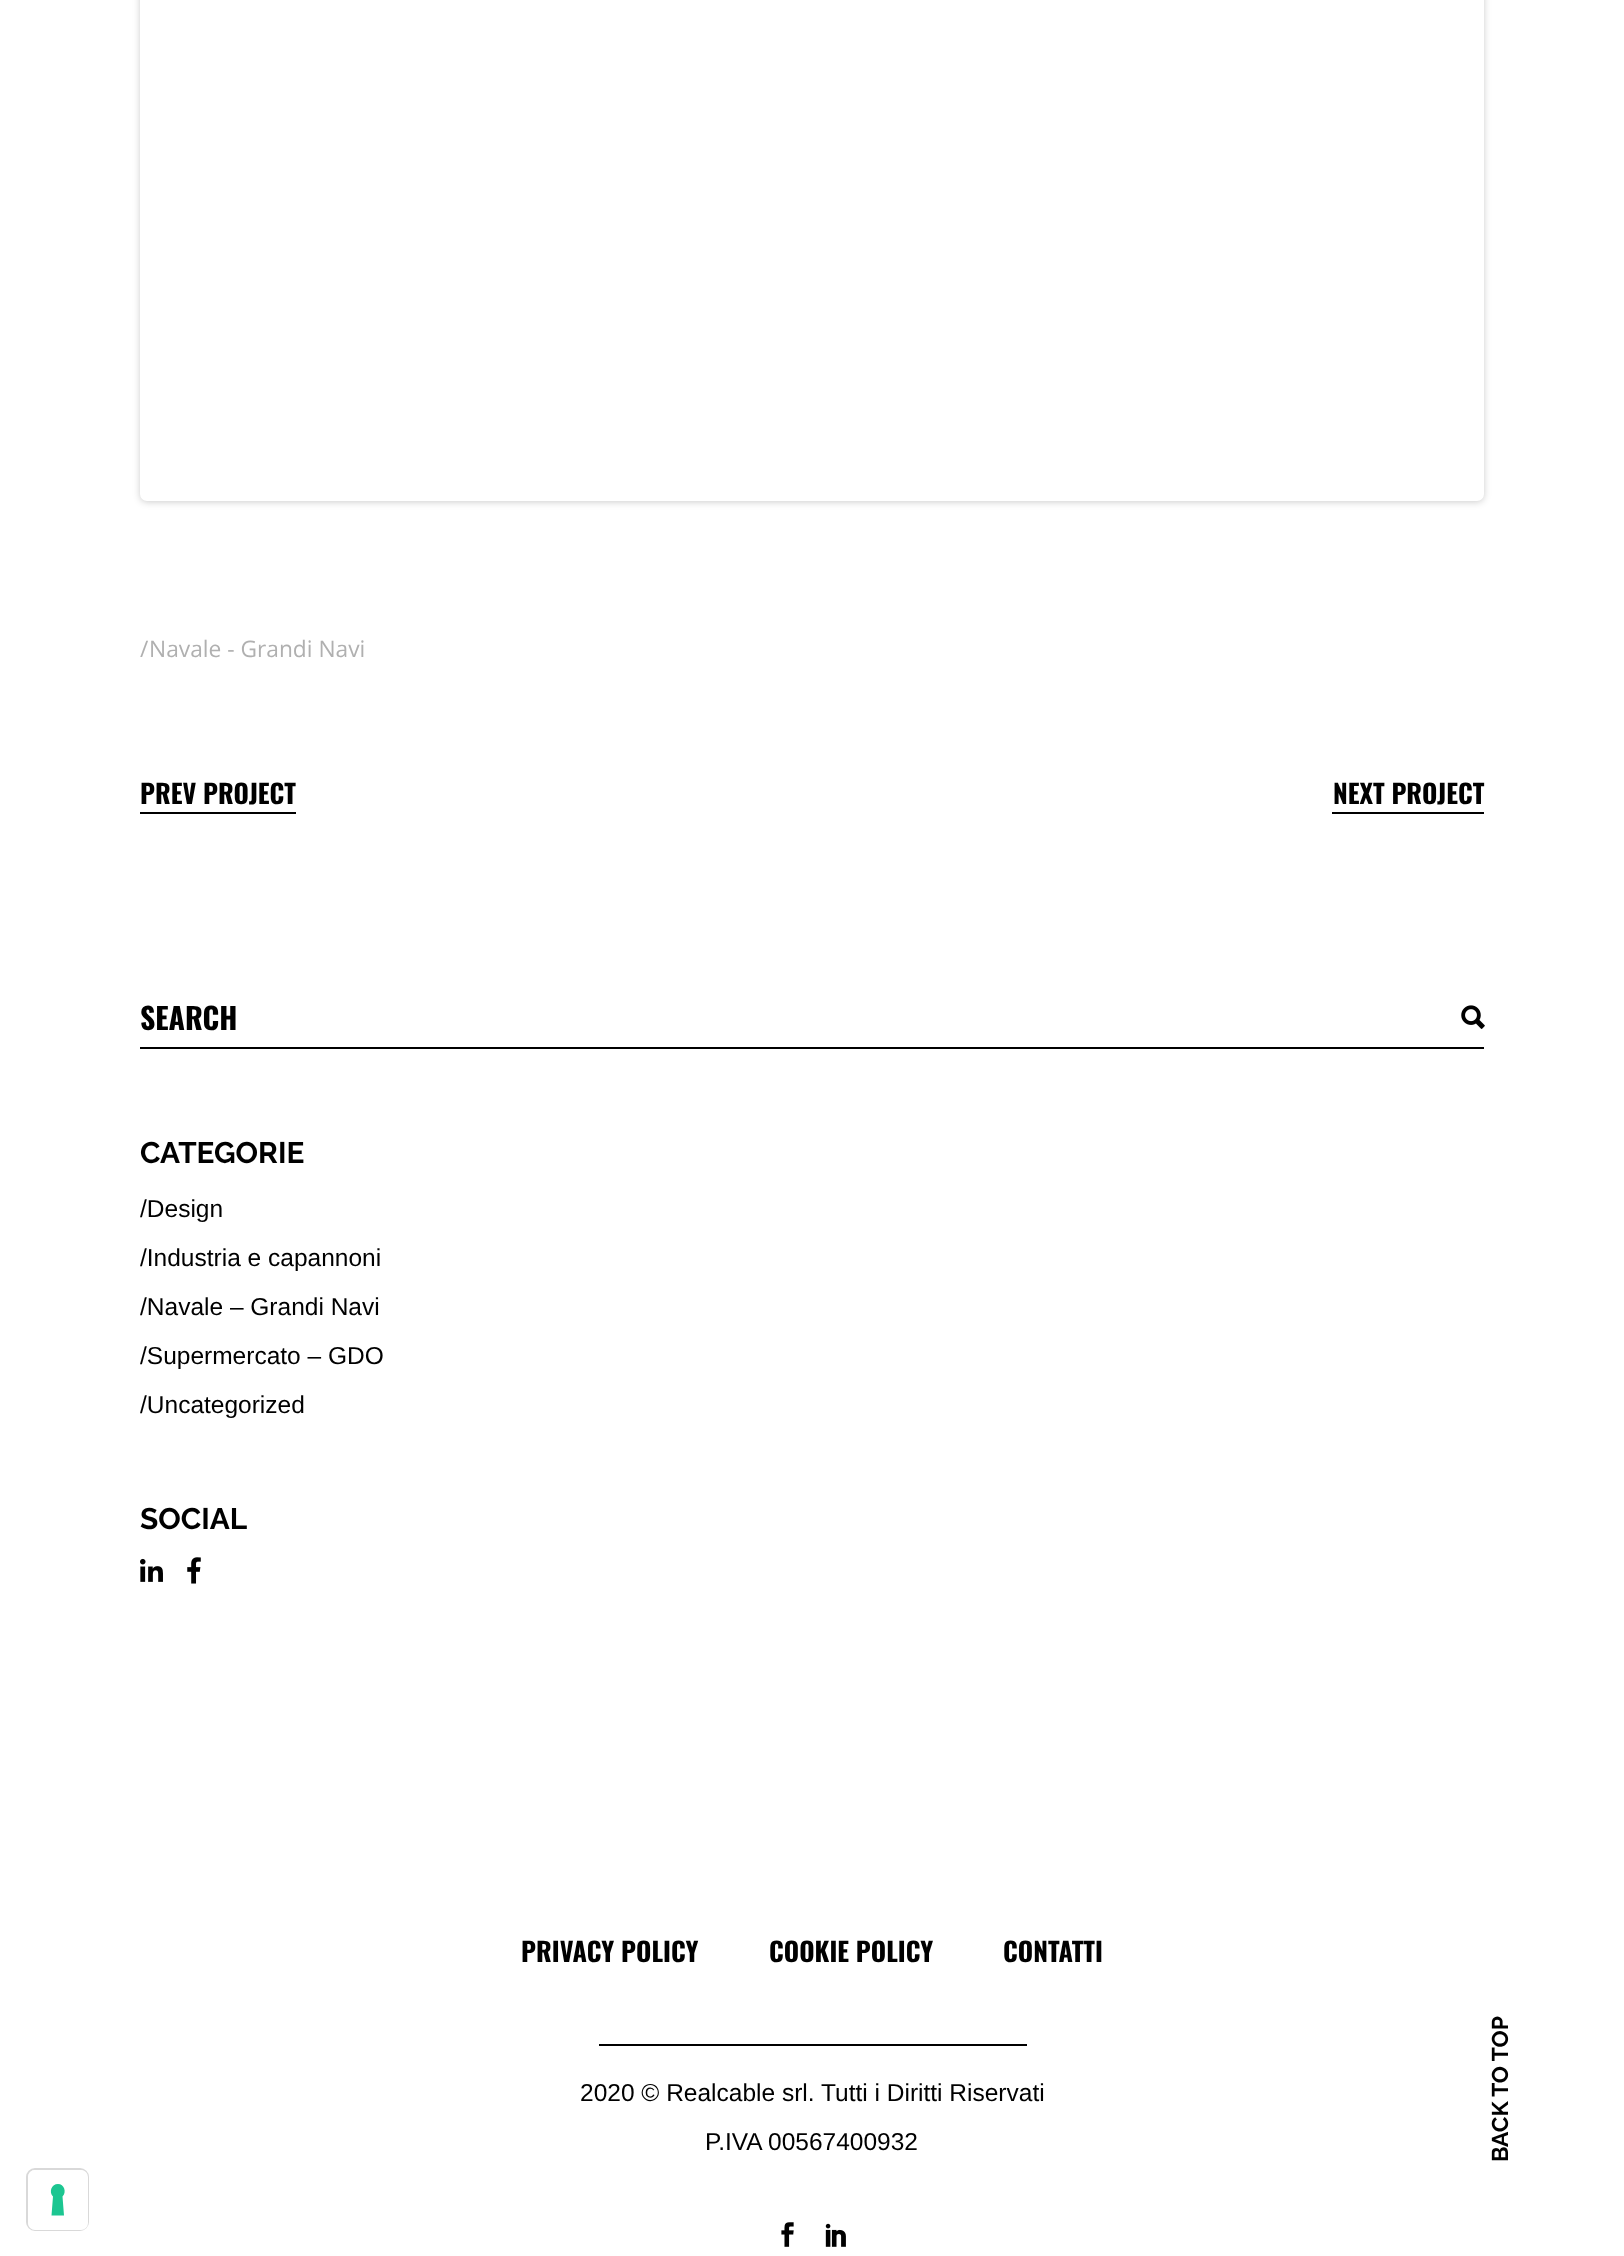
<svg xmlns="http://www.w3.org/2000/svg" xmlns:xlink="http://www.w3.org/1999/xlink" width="1624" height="2256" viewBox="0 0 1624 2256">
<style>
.cls-1{font:22.75px Open Sans;fill:#b0b0b0}
.cls-2{font:bold 26.25px Oswald;fill:#000000}
.cls-3{font:bold 29.75px Oswald;fill:#000000}
.cls-4{font:bold 29.75px Raleway;fill:#000000}
.cls-5{font:24.5px Liberation Sans;fill:#000000}
.cls-6{font:bold 22.75px Raleway;fill:#000000}
</style>
<rect width="100%" height="100%" fill="#ffffff"/>
<rect fill="#000000" fill-opacity="0.2" filter="blur(3.5px)" x="140" y="-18" width="1344" height="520" rx="7"/>
<rect fill="#ffffff" stroke="#ffffff" stroke-width="7" x="143.5" y="-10.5" width="1337" height="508" rx="3.5"/>
<rect fill="#000000" x="140" y="812" width="156" height="2"/>
<rect fill="#000000" x="1332" y="812" width="152" height="2"/>
<rect fill="#000000" x="140" y="1047" width="1344" height="2"/>
<image xlink:href="image0.png" x="1461" y="1005" width="24" height="24"/>
<image xlink:href="image1.png" x="140" y="1558" width="23" height="24"/>
<image xlink:href="image2.png" x="187" y="1557" width="14" height="27"/>
<rect fill="#000000" x="599" y="2044" width="428" height="2"/>
<image xlink:href="image3.png" x="781" y="2222" width="13" height="25"/>
<image xlink:href="image4.png" x="825" y="2223" width="21" height="24"/>
<rect fill="none" stroke="#d9d9d9" stroke-width="2" x="27" y="2169" width="61" height="61" rx="8"/>
<rect fill="#ffffff" x="28" y="2170" width="60" height="60" rx="7"/>
<path fill="#1cc691" fill-rule="evenodd" d="M58 2184C64 2184 67 2192 62.5 2196.5L64 2215.5H51.5L53 2196.5C48.5 2192 51.5 2184 58 2184Z"/>
<text class="cls-1" x="140" y="657">/</text>
<text class="cls-1" x="149" y="657">Navale - Grandi Navi</text>
<text class="cls-2" x="140" y="804">PREV PROJECT</text>
<text class="cls-2" x="1333" y="804">NEXT PROJECT</text>
<text class="cls-3" x="140" y="1030">SEARCH</text>
<text class="cls-4" x="140" y="1163">CATEGORIE</text>
<text class="cls-5" x="140" y="1217">/Design</text>
<text class="cls-5" x="140" y="1266">/Industria e capannoni</text>
<text class="cls-5" x="140" y="1315">/Navale – Grandi Navi</text>
<text class="cls-5" x="140" y="1364">/Supermercato – GDO</text>
<text class="cls-5" x="140" y="1413">/Uncategorized</text>
<text class="cls-4" x="140" y="1529">SOCIAL</text>
<text class="cls-2" x="521" y="1962">PRIVACY POLICY</text>
<text class="cls-2" x="769" y="1962">COOKIE POLICY</text>
<text class="cls-2" x="1003" y="1962">CONTATTI</text>
<text class="cls-5" x="580" y="2101">2020 © Realcable srl. Tutti i Diritti Riservati</text>
<text class="cls-5" x="705" y="2150">P.IVA 00567400932</text>
<text class="cls-6" x="1508" y="2162" transform="rotate(-90 1508 2162)">BACK TO TOP</text>
</svg>
